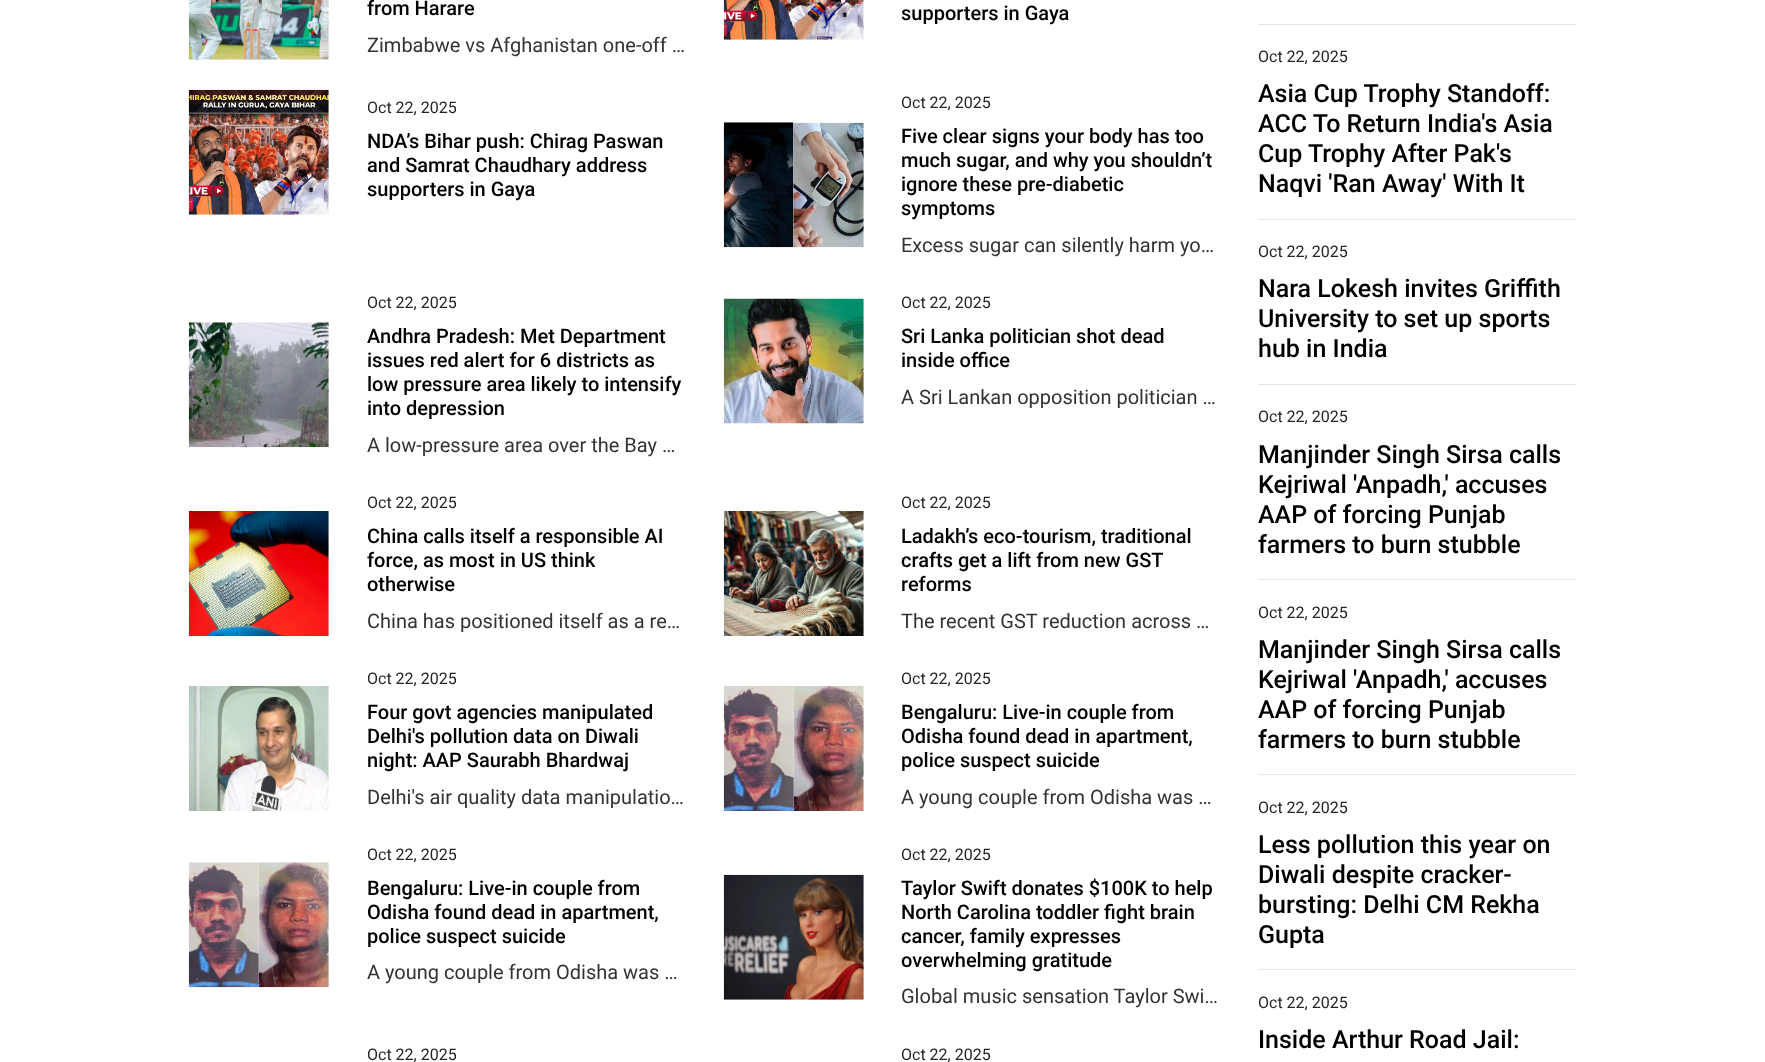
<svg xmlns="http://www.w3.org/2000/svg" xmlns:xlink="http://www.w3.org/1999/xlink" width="1765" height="1062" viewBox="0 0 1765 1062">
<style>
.cls-1{font:500 20px Roboto;fill:#000000}
.cls-2{font:20px Roboto;fill:#333333}
.cls-3{font:16px Roboto;fill:#212529}
.cls-4{font:500 25px Roboto;fill:#000000}
</style>
<rect width="100%" height="100%" fill="#ffffff"/>
<image xlink:href="image0.png" x="188" y="0" width="141" height="60"/>
<image xlink:href="image1.png" x="723" y="0" width="141" height="40"/>
<image xlink:href="image2.png" x="188" y="89" width="141" height="126"/>
<image xlink:href="image3.png" x="723" y="122" width="141" height="126"/>
<image xlink:href="image4.png" x="188" y="322" width="141" height="126"/>
<image xlink:href="image5.png" x="723" y="298" width="141" height="126"/>
<image xlink:href="image6.png" x="188" y="511" width="141" height="125"/>
<image xlink:href="image7.png" x="723" y="511" width="141" height="125"/>
<image xlink:href="image8.png" x="188" y="686" width="141" height="125"/>
<image xlink:href="image9.png" x="723" y="686" width="141" height="125"/>
<image xlink:href="image10.png" x="188" y="862" width="141" height="126"/>
<image xlink:href="image11.png" x="723" y="874" width="141" height="126"/>
<rect fill="#e6e6e6" x="1258" y="24" width="318" height="1"/>
<rect fill="#e6e6e6" x="1258" y="219" width="318" height="1"/>
<rect fill="#e6e6e6" x="1258" y="384" width="318" height="1"/>
<rect fill="#e6e6e6" x="1258" y="579" width="318" height="1"/>
<rect fill="#e6e6e6" x="1258" y="774" width="318" height="1"/>
<rect fill="#e6e6e6" x="1258" y="969" width="318" height="1"/>
<text class="cls-1" x="367" y="15">from Harare</text>
<text class="cls-2" x="367" y="52">Zimbabwe vs Afghanistan one-off …</text>
<text class="cls-1" x="901" y="20">supporters in Gaya</text>
<text class="cls-3" x="367" y="113">Oct 22, 2025</text>
<text class="cls-1"><tspan x="367" y="148">NDA’s Bihar push: Chirag Paswan</tspan><tspan x="367" y="172">and Samrat Chaudhary address</tspan><tspan x="367" y="196">supporters in Gaya</tspan></text>
<text class="cls-3" x="901" y="108">Oct 22, 2025</text>
<text class="cls-1"><tspan x="901" y="143">Five clear signs your body has too</tspan><tspan x="901" y="167">much sugar, and why you shouldn’t</tspan><tspan x="901" y="191">ignore these pre-diabetic</tspan><tspan x="901" y="215">symptoms</tspan></text>
<text class="cls-2" x="901" y="252">Excess sugar can silently harm yo…</text>
<text class="cls-3" x="367" y="308">Oct 22, 2025</text>
<text class="cls-1"><tspan x="367" y="343">Andhra Pradesh: Met Department</tspan><tspan x="367" y="367">issues red alert for 6 districts as</tspan><tspan x="367" y="391">low pressure area likely to intensify</tspan><tspan x="367" y="415">into depression</tspan></text>
<text class="cls-2" x="367" y="452">A low-pressure area over the Bay …</text>
<text class="cls-3" x="901" y="308">Oct 22, 2025</text>
<text class="cls-1"><tspan x="901" y="343">Sri Lanka politician shot dead</tspan><tspan x="901" y="367">inside office</tspan></text>
<text class="cls-2" x="901" y="404">A Sri Lankan opposition politician …</text>
<text class="cls-3" x="367" y="508">Oct 22, 2025</text>
<text class="cls-1"><tspan x="367" y="543">China calls itself a responsible AI</tspan><tspan x="367" y="567">force, as most in US think</tspan><tspan x="367" y="591">otherwise</tspan></text>
<text class="cls-2" x="367" y="628">China has positioned itself as a re…</text>
<text class="cls-3" x="901" y="508">Oct 22, 2025</text>
<text class="cls-1"><tspan x="901" y="543">Ladakh’s eco-tourism, traditional</tspan><tspan x="901" y="567">crafts get a lift from new GST</tspan><tspan x="901" y="591">reforms</tspan></text>
<text class="cls-2" x="901" y="628">The recent GST reduction across …</text>
<text class="cls-3" x="367" y="684">Oct 22, 2025</text>
<text class="cls-1"><tspan x="367" y="719">Four govt agencies manipulated</tspan><tspan x="367" y="743">Delhi's pollution data on Diwali</tspan><tspan x="367" y="767">night: AAP Saurabh Bhardwaj</tspan></text>
<text class="cls-2" x="367" y="804">Delhi's air quality data manipulatio…</text>
<text class="cls-3" x="901" y="684">Oct 22, 2025</text>
<text class="cls-1"><tspan x="901" y="719">Bengaluru: Live-in couple from</tspan><tspan x="901" y="743">Odisha found dead in apartment,</tspan><tspan x="901" y="767">police suspect suicide</tspan></text>
<text class="cls-2" x="901" y="804">A young couple from Odisha was …</text>
<text class="cls-3" x="367" y="860">Oct 22, 2025</text>
<text class="cls-1"><tspan x="367" y="895">Bengaluru: Live-in couple from</tspan><tspan x="367" y="919">Odisha found dead in apartment,</tspan><tspan x="367" y="943">police suspect suicide</tspan></text>
<text class="cls-2" x="367" y="979">A young couple from Odisha was …</text>
<text class="cls-3" x="901" y="860">Oct 22, 2025</text>
<text class="cls-1"><tspan x="901" y="895">Taylor Swift donates $100K to help</tspan><tspan x="901" y="919">North Carolina toddler fight brain</tspan><tspan x="901" y="943">cancer, family expresses</tspan><tspan x="901" y="967">overwhelming gratitude</tspan></text>
<text class="cls-2" x="901" y="1003">Global music sensation Taylor Swi…</text>
<text class="cls-3" x="367" y="1060">Oct 22, 2025</text>
<text class="cls-3" x="901" y="1060">Oct 22, 2025</text>
<text class="cls-3" x="1258" y="62">Oct 22, 2025</text>
<text class="cls-4"><tspan x="1258" y="102">Asia Cup Trophy Standoff:</tspan><tspan x="1258" y="132">ACC To Return India's Asia</tspan><tspan x="1258" y="162">Cup Trophy After Pak's</tspan><tspan x="1258" y="192">Naqvi 'Ran Away' With It</tspan></text>
<text class="cls-3" x="1258" y="257">Oct 22, 2025</text>
<text class="cls-4"><tspan x="1258" y="297">Nara Lokesh invites Griffith</tspan><tspan x="1258" y="327">University to set up sports</tspan><tspan x="1258" y="357">hub in India</tspan></text>
<text class="cls-3" x="1258" y="422">Oct 22, 2025</text>
<text class="cls-4"><tspan x="1258" y="463">Manjinder Singh Sirsa calls</tspan><tspan x="1258" y="493">Kejriwal 'Anpadh,' accuses</tspan><tspan x="1258" y="523">AAP of forcing Punjab</tspan><tspan x="1258" y="553">farmers to burn stubble</tspan></text>
<text class="cls-3" x="1258" y="618">Oct 22, 2025</text>
<text class="cls-4"><tspan x="1258" y="658">Manjinder Singh Sirsa calls</tspan><tspan x="1258" y="688">Kejriwal 'Anpadh,' accuses</tspan><tspan x="1258" y="718">AAP of forcing Punjab</tspan><tspan x="1258" y="748">farmers to burn stubble</tspan></text>
<text class="cls-3" x="1258" y="813">Oct 22, 2025</text>
<text class="cls-4"><tspan x="1258" y="853">Less pollution this year on</tspan><tspan x="1258" y="883">Diwali despite cracker-</tspan><tspan x="1258" y="913">bursting: Delhi CM Rekha</tspan><tspan x="1258" y="943">Gupta</tspan></text>
<text class="cls-3" x="1258" y="1008">Oct 22, 2025</text>
<text class="cls-4" x="1258" y="1048">Inside Arthur Road Jail:</text>
</svg>
